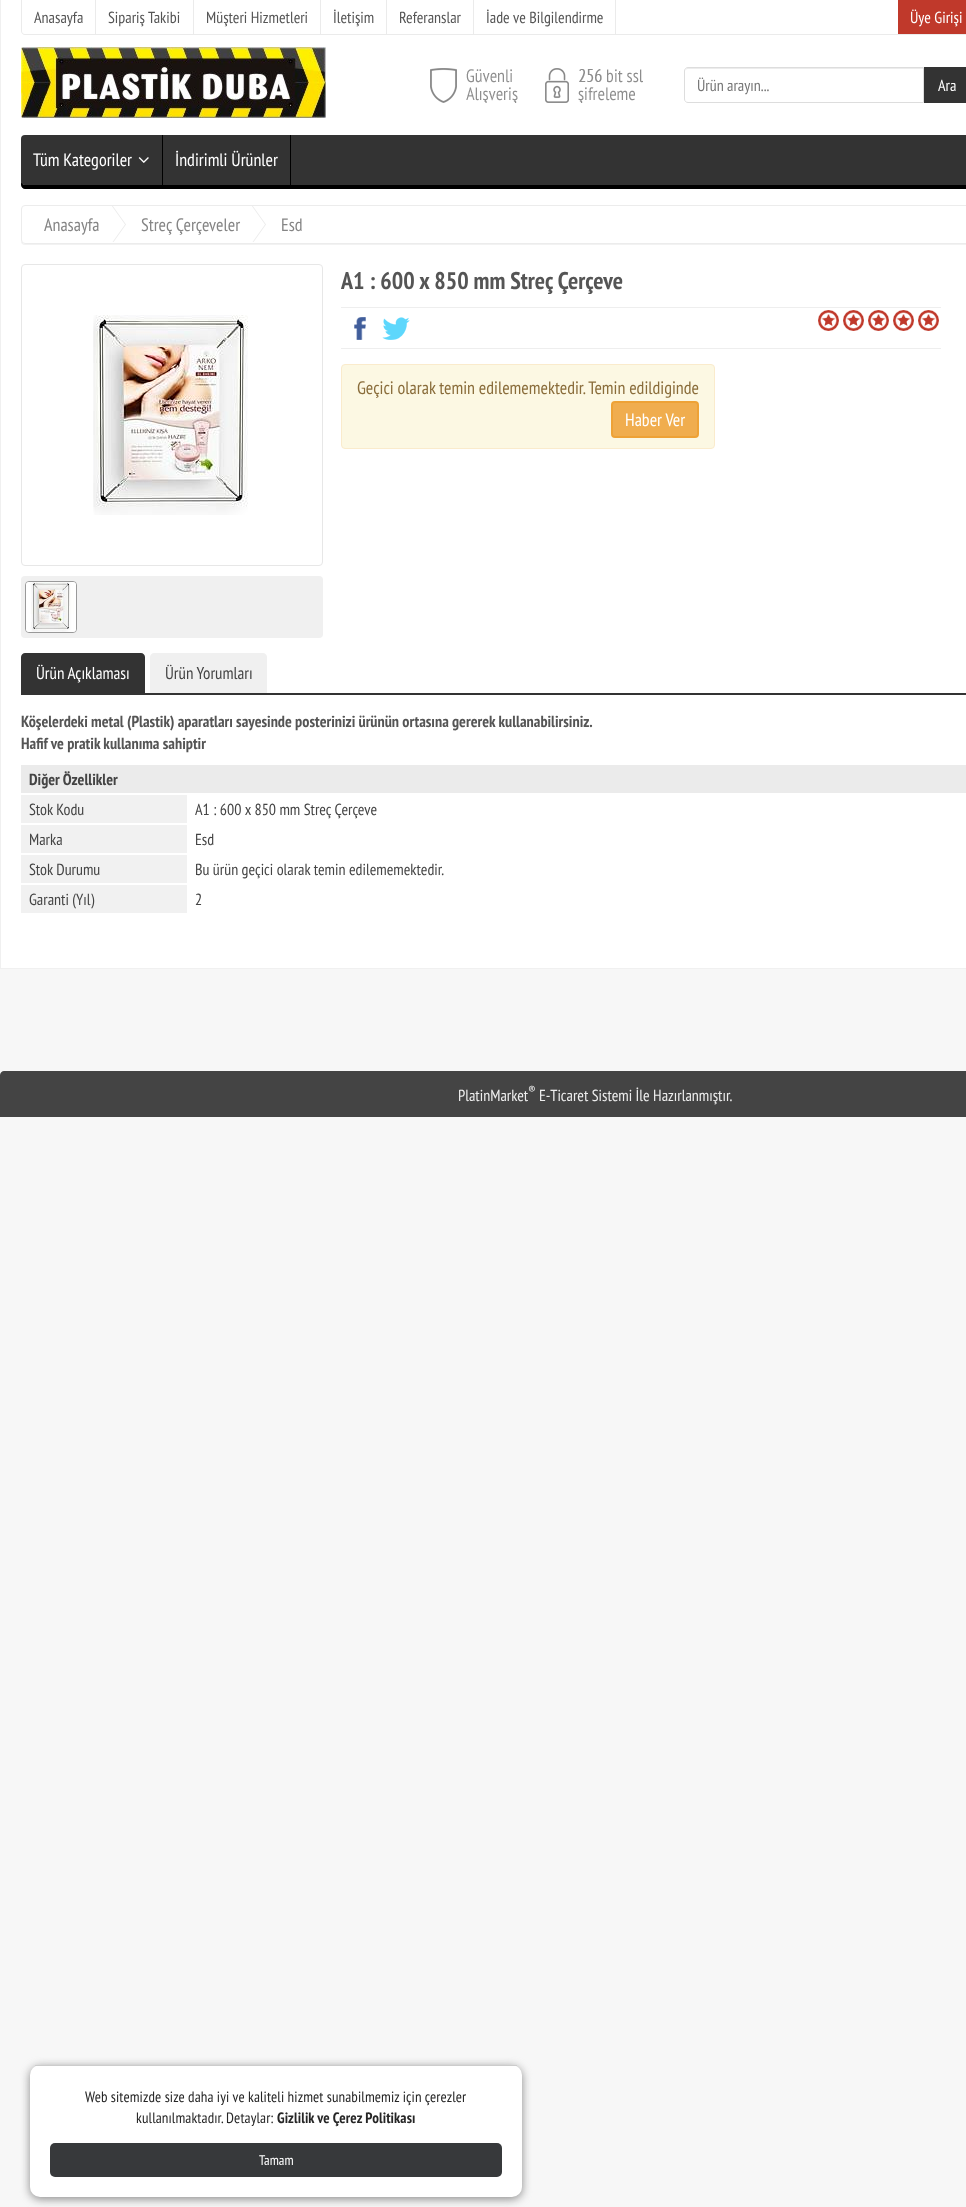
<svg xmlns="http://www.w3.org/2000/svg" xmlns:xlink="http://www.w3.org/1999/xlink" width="966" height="2207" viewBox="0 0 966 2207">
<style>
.cls-1{font:16px PT Sans Narrow;fill:#555555}
.cls-2{font:16px PT Sans Narrow;fill:#ffffff}
.cls-3{font:16px PT Sans Narrow;fill:#757575}
.cls-4{font:18px PT Sans Narrow;fill:#ffffff}
.cls-5{font:15px PT Sans Narrow;letter-spacing:0.1px;fill:#262626}
.cls-6{font:bold 15px PT Sans Narrow;letter-spacing:0.1px;fill:#262626}
.cls-7{font:14px PT Sans Narrow;fill:#ffffff}
.cls-8{font:18px PT Sans Narrow;fill:#858585}
.cls-9{font:bold 24px PT Sans Narrow;fill:#555555}
.cls-10{font:18px PT Sans Narrow;fill:#8a6d3b}
.cls-11{font:17px PT Sans Narrow;fill:#ffffff}
.cls-12{font:17px PT Sans Narrow;fill:#444444}
.cls-13{font:bold 16px PT Sans Narrow;fill:#555555}
.cls-14{font:bold 16px PT Sans Narrow;fill:#444444}
.cls-15{font:16px PT Sans Narrow;fill:#444444}
.cls-16{font:16px PT Sans Narrow;fill:#eeeeee}
.cls-17{font:13px PT Sans Narrow;fill:#eeeeee}
</style>
<defs>
<clipPath id="clip1"><path d="M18 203H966V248H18ZM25 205H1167C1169 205 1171 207 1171 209V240C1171 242 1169 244 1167 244H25C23 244 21 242 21 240V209C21 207 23 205 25 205Z" clip-rule="evenodd"/></clipPath>
</defs>
<rect width="100%" height="100%" fill="#f7f7f7"/>
<rect fill="#ffffff" x="1" y="0" width="965" height="968"/>
<rect fill="#f0f0f0" x="0" y="0" width="1" height="968"/>
<path fill="#ebebeb" fill-rule="evenodd" d="M21 0H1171V31C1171 33 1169 35 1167 35H25C23 35 21 33 21 31ZM22 0H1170V31C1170 33 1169 34 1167 34H25C23 34 22 33 22 31Z"/>
<rect fill="#ebebeb" x="95" y="0" width="1" height="34"/>
<rect fill="#ebebeb" x="193" y="0" width="1" height="34"/>
<rect fill="#ebebeb" x="320" y="0" width="1" height="34"/>
<rect fill="#ebebeb" x="386" y="0" width="1" height="34"/>
<rect fill="#ebebeb" x="473" y="0" width="1" height="34"/>
<rect fill="#ebebeb" x="615" y="0" width="1" height="34"/>
<rect fill="#c0392b" x="898" y="0" width="68" height="34"/>
<image xlink:href="image0.png" x="21" y="47" width="305" height="71"/>
<image xlink:href="image1.png" x="430" y="68" width="213" height="35"/>
<path fill="#ececec" d="M688 69H923V68H688C686 68 685 70 685 72C685 70 686 69 688 69Z"/>
<path fill="none" stroke="#dddddd" d="M688 67.5H923.5V102.5H688C686 102.5 684.5 101 684.5 99V71C684.5 69 686 67.5 688 67.5Z"/>
<rect fill="#333333" x="924" y="67" width="42" height="36"/>
<rect fill="#333333" x="21" y="135" width="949" height="50" rx="4"/>
<path fill="#000000" d="M21 181V185C21 187 23 189 25 189H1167C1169 189 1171 187 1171 185V181C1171 183 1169 185 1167 185H25C23 185 21 183 21 181Z"/>
<rect fill="#000000" x="162" y="135" width="1" height="50"/>
<image xlink:href="image2.png" x="138" y="157" width="11" height="6"/>
<rect fill="#000000" x="290" y="135" width="1" height="50"/>
<rect fill="#888888" filter="blur(5px)" x="30" y="2067" width="492" height="132" rx="10"/>
<rect fill="#ffffff" x="30" y="2065" width="492" height="132" rx="10"/>
<rect fill="#cccccc" x="35" y="2065" width="482" height="1"/>
<rect fill="#37393b" x="50" y="2143" width="452" height="34" rx="5"/>
<g clip-path="url(#clip1)">
<rect fill="#000000" fill-opacity="0.05" filter="blur(0.5px)" x="21" y="206" width="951" height="39" rx="4"/>
</g>
<rect fill="none" stroke="#ececec" x="21.5" y="205.5" width="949" height="38" rx="3.5"/>
<image xlink:href="image3.png" x="112" y="206" width="14" height="36"/>
<image xlink:href="image3.png" x="252" y="206" width="14" height="36"/>
<rect fill="none" stroke="#e7e7e7" x="21.5" y="264.5" width="301" height="301" rx="3.5"/>
<image xlink:href="image4.png" x="93" y="315" width="155" height="200"/>
<rect fill="#f0f0f0" x="21" y="576" width="302" height="62" rx="4"/>
<rect fill="none" stroke="#999999" x="25.5" y="581.5" width="51" height="51" rx="3.5"/>
<image xlink:href="image5.png" x="26" y="582" width="50" height="50"/>
<rect fill="#eeeeee" x="341" y="307" width="600" height="1"/>
<rect fill="#eeeeee" x="341" y="348" width="600" height="1"/>
<image xlink:href="image6.png" x="354" y="317" width="12" height="23"/>
<image xlink:href="image7.png" x="382" y="317" width="28" height="23"/>
<image xlink:href="image8.png" x="818" y="310" width="121" height="21"/>
<rect fill="#fcf8e3" stroke="#faebcc" x="341.5" y="364.5" width="373" height="84" rx="3.5"/>
<rect fill="#f0ad4e" stroke="#eea236" stroke-width="2" x="612" y="402" width="86" height="35" rx="3"/>
<rect fill="#333333" x="21" y="693" width="945" height="2"/>
<path fill="#333333" d="M25 653H141C143 653 145 655 145 657V693H21V657C21 655 23 653 25 653Z"/>
<path fill="#f0f0f0" d="M154 653H263C265 653 267 655 267 657V693H150V657C150 655 152 653 154 653Z"/>
<rect fill="#ebebeb" x="21" y="765" width="945" height="28"/>
<rect fill="#f1f1f1" x="21" y="795" width="166" height="28"/>
<rect fill="#f1f1f1" x="21" y="825" width="166" height="28"/>
<rect fill="#f1f1f1" x="21" y="855" width="166" height="28"/>
<rect fill="#f1f1f1" x="21" y="885" width="166" height="28"/>
<rect fill="#f0f0f0" x="0" y="968" width="966" height="1"/>
<path fill="#444444" d="M4 1071H966C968 1071 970 1073 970 1075V1117H0V1075C0 1073 2 1071 4 1071Z"/>
<text class="cls-1" x="34" y="23">Anasayfa</text>
<text class="cls-1" x="108" y="23">Sipariş Takibi</text>
<text class="cls-1" x="206" y="23">Müşteri Hizmetleri</text>
<text class="cls-1" x="333" y="23">İletişim</text>
<text class="cls-1" x="399" y="23">Referanslar</text>
<text class="cls-1" x="486" y="23">İade ve Bilgilendirme</text>
<text class="cls-2" x="910" y="23">Üye Girişi</text>
<text class="cls-3" x="697" y="91">Ürün arayın...</text>
<text class="cls-2" x="938" y="91">Ara</text>
<text class="cls-4" x="33" y="166">Tüm Kategoriler</text>
<text class="cls-4" x="175" y="166">İndirimli Ürünler</text>
<text class="cls-5" x="85" y="2102">Web sitemizde size daha iyi ve kaliteli hizmet sunabilmemiz için çerezler</text>
<text class="cls-5" x="136" y="2123">kullanılmaktadır. Detaylar:</text>
<text class="cls-6" x="277" y="2123">Gizlilik ve Çerez Politikası</text>
<text class="cls-7" x="259" y="2165">Tamam</text>
<text class="cls-8" x="44" y="231">Anasayfa</text>
<text class="cls-8" x="141" y="231">Streç Çerçeveler</text>
<text class="cls-8" x="281" y="231">Esd</text>
<text class="cls-9" x="341" y="289">A1 : 600 x 850 mm Streç Çerçeve</text>
<text class="cls-10" x="357" y="394">Geçici olarak temin edilememektedir. Temin edildiginde</text>
<text class="cls-4" x="625" y="426">Haber Ver</text>
<text class="cls-11" x="36" y="679">Ürün Açıklaması</text>
<text class="cls-12" x="165" y="679">Ürün Yorumları</text>
<text class="cls-13"><tspan x="21" y="727">Köşelerdeki metal (Plastik) aparatları sayesinde posterinizi ürünün ortasına gererek kullanabilirsiniz.</tspan><tspan x="21" y="749">Hafif ve pratik kullanıma sahiptir</tspan></text>
<text class="cls-14" x="29" y="785">Diğer Özellikler</text>
<text class="cls-15" x="29" y="815">Stok Kodu</text>
<text class="cls-15" x="195" y="815">A1 : 600 x 850 mm Streç Çerçeve</text>
<text class="cls-15" x="29" y="845">Marka</text>
<text class="cls-15" x="195" y="845">Esd</text>
<text class="cls-15" x="29" y="875">Stok Durumu</text>
<text class="cls-15" x="195" y="875">Bu ürün geçici olarak temin edilememektedir.</text>
<text class="cls-15" x="29" y="905">Garanti (Yıl)</text>
<text class="cls-15" x="195" y="905">2</text>
<text class="cls-16" x="458" y="1101">PlatinMarket</text>
<text class="cls-17" x="528" y="1095">®</text>
<text class="cls-16" x="539" y="1101">E-Ticaret Sistemi İle Hazırlanmıştır.</text>
</svg>
